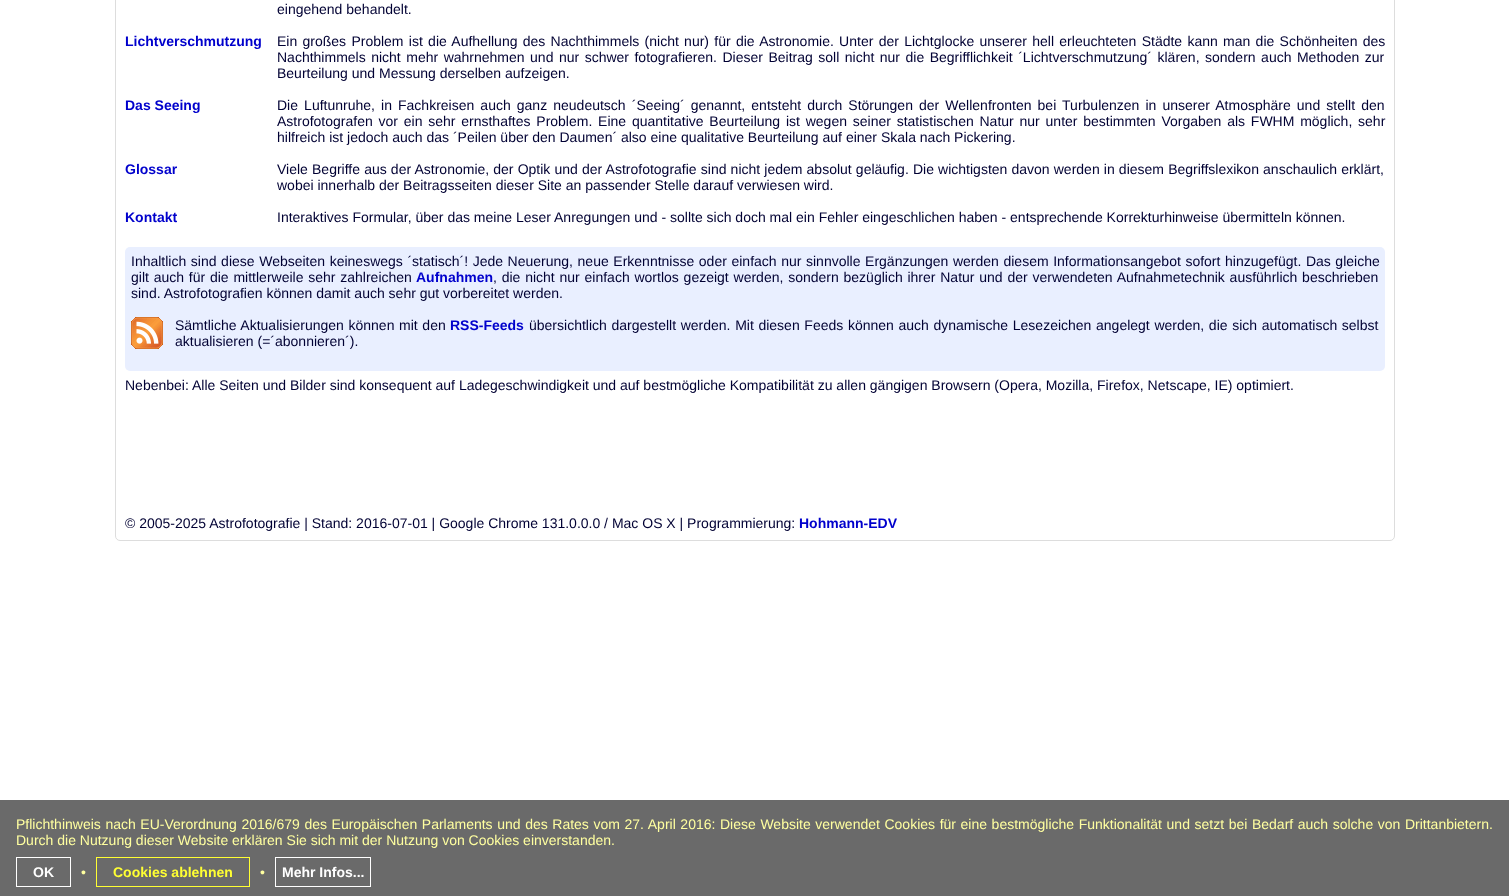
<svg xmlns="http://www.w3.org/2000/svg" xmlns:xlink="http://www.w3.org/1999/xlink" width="1509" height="896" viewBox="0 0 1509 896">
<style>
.cls-1{font:14px Liberation Sans;fill:#000033}
.cls-2{font:bold 14px Liberation Sans;fill:#0000cc}
.cls-3{font:14px Liberation Sans;fill:#ffffa0}
.cls-4{font:bold 14px Liberation Sans;fill:#ffffff}
.cls-5{font:bold 14px Liberation Sans;fill:#ffff33}
</style>
<rect width="100%" height="100%" fill="#ffffff"/>
<rect fill="none" stroke="#dddddd" x="115.5" y="-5.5" width="1279" height="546" rx="4.5"/>
<rect fill="#e9efff" x="125" y="247" width="1260" height="124" rx="5"/>
<image xlink:href="image0.png" x="131" y="317" width="32" height="32"/>
<rect fill="#6a6a6a" x="0" y="800" width="1509" height="96"/>
<rect fill="none" stroke="#ffffff" x="16.5" y="857.5" width="54" height="29"/>
<rect fill="none" stroke="#ffff33" x="96.5" y="857.5" width="153" height="29"/>
<rect fill="none" stroke="#ffffff" x="275.5" y="857.5" width="95" height="29"/>
<text class="cls-1" x="277" y="14">eingehend behandelt.</text>
<text class="cls-2" x="125" y="46">Lichtverschmutzung</text>
<text class="cls-1"><tspan x="277" y="46" word-spacing="1.4">Ein großes Problem ist die Aufhellung des Nachthimmels (nicht nur) für die Astronomie. Unter der Lichtglocke unserer hell erleuchteten Städte kann man die Schönheiten des</tspan><tspan x="277" y="62" word-spacing="1.6">Nachthimmels nicht mehr wahrnehmen und nur schwer fotografieren. Dieser Beitrag soll nicht nur die Begrifflichkeit ´Lichtverschmutzung´ klären, sondern auch Methoden zur</tspan><tspan x="277" y="78">Beurteilung und Messung derselben aufzeigen.</tspan></text>
<text class="cls-2" x="125" y="110">Das Seeing</text>
<text class="cls-1"><tspan x="277" y="110" word-spacing="2.2">Die Luftunruhe, in Fachkreisen auch ganz neudeutsch ´Seeing´ genannt, entsteht durch Störungen der Wellenfronten bei Turbulenzen in unserer Atmosphäre und stellt den</tspan><tspan x="277" y="126" word-spacing="1.9">Astrofotografen vor ein sehr ernsthaftes Problem. Eine quantitative Beurteilung ist wegen seiner statistischen Natur nur unter bestimmten Vorgaben als FWHM möglich, sehr</tspan><tspan x="277" y="142">hilfreich ist jedoch auch das ´Peilen über den Daumen´ also eine qualitative Beurteilung auf einer Skala nach Pickering.</tspan></text>
<text class="cls-2" x="125" y="174">Glossar</text>
<text class="cls-1"><tspan x="277" y="174" word-spacing="0.25">Viele Begriffe aus der Astronomie, der Optik und der Astrofotografie sind nicht jedem absolut geläufig. Die wichtigsten davon werden in diesem Begriffslexikon anschaulich erklärt,</tspan><tspan x="277" y="190">wobei innerhalb der Beitragsseiten dieser Site an passender Stelle darauf verwiesen wird.</tspan></text>
<text class="cls-2" x="125" y="222">Kontakt</text>
<text class="cls-1" x="277" y="222">Interaktives Formular, über das meine Leser Anregungen und - sollte sich doch mal ein Fehler eingeschlichen haben - entsprechende Korrekturhinweise übermitteln können.</text>
<text class="cls-1"><tspan x="131" y="266" word-spacing="0.7">Inhaltlich sind diese Webseiten keineswegs ´statisch´! Jede Neuerung, neue Erkenntnisse oder einfach nur sinnvolle Ergänzungen werden diesem Informationsangebot sofort hinzugefügt. Das gleiche</tspan><tspan x="131" y="282" word-spacing="0.9">gilt auch für die mittlerweile sehr zahlreichen</tspan></text>
<text class="cls-2" x="416" y="282">Aufnahmen</text>
<text class="cls-1" x="493" y="282" word-spacing="0.9">, die nicht nur einfach wortlos gezeigt werden, sondern bezüglich ihrer Natur und der verwendeten Aufnahmetechnik ausführlich beschrieben</text>
<text class="cls-1" x="131" y="298">sind. Astrofotografien können damit auch sehr gut vorbereitet werden.</text>
<text class="cls-1" x="175" y="330" word-spacing="0.75">Sämtliche Aktualisierungen können mit den</text>
<text class="cls-2" x="450" y="330">RSS-Feeds</text>
<text class="cls-1" x="529" y="330" word-spacing="0.75">übersichtlich dargestellt werden. Mit diesen Feeds können auch dynamische Lesezeichen angelegt werden, die sich automatisch selbst</text>
<text class="cls-1" x="175" y="346">aktualisieren (=´abonnieren´).</text>
<text class="cls-1" x="125" y="390">Nebenbei: Alle Seiten und Bilder sind konsequent auf Ladegeschwindigkeit und auf bestmögliche Kompatibilität zu allen gängigen Browsern (Opera, Mozilla, Firefox, Netscape, IE) optimiert.</text>
<text class="cls-1" x="125" y="528">© 2005-2025 Astrofotografie | Stand: 2016-07-01 | Google Chrome 131.0.0.0 / Mac OS X | Programmierung:</text>
<text class="cls-2" x="799" y="528">Hohmann-EDV</text>
<text class="cls-3"><tspan x="16" y="829" word-spacing="0.7">Pflichthinweis nach EU-Verordnung 2016/679 des Europäischen Parlaments und des Rates vom 27. April 2016: Diese Website verwendet Cookies für eine bestmögliche Funktionalität und setzt bei Bedarf auch solche von Drittanbietern.</tspan><tspan x="16" y="845">Durch die Nutzung dieser Website erklären Sie sich mit der Nutzung von Cookies einverstanden.</tspan></text>
<text class="cls-4" x="33" y="877">OK</text>
<text class="cls-3" x="81" y="877">•</text>
<text class="cls-5" x="113" y="877">Cookies ablehnen</text>
<text class="cls-3" x="260" y="877">•</text>
<text class="cls-4" x="282" y="877">Mehr Infos...</text>
</svg>
